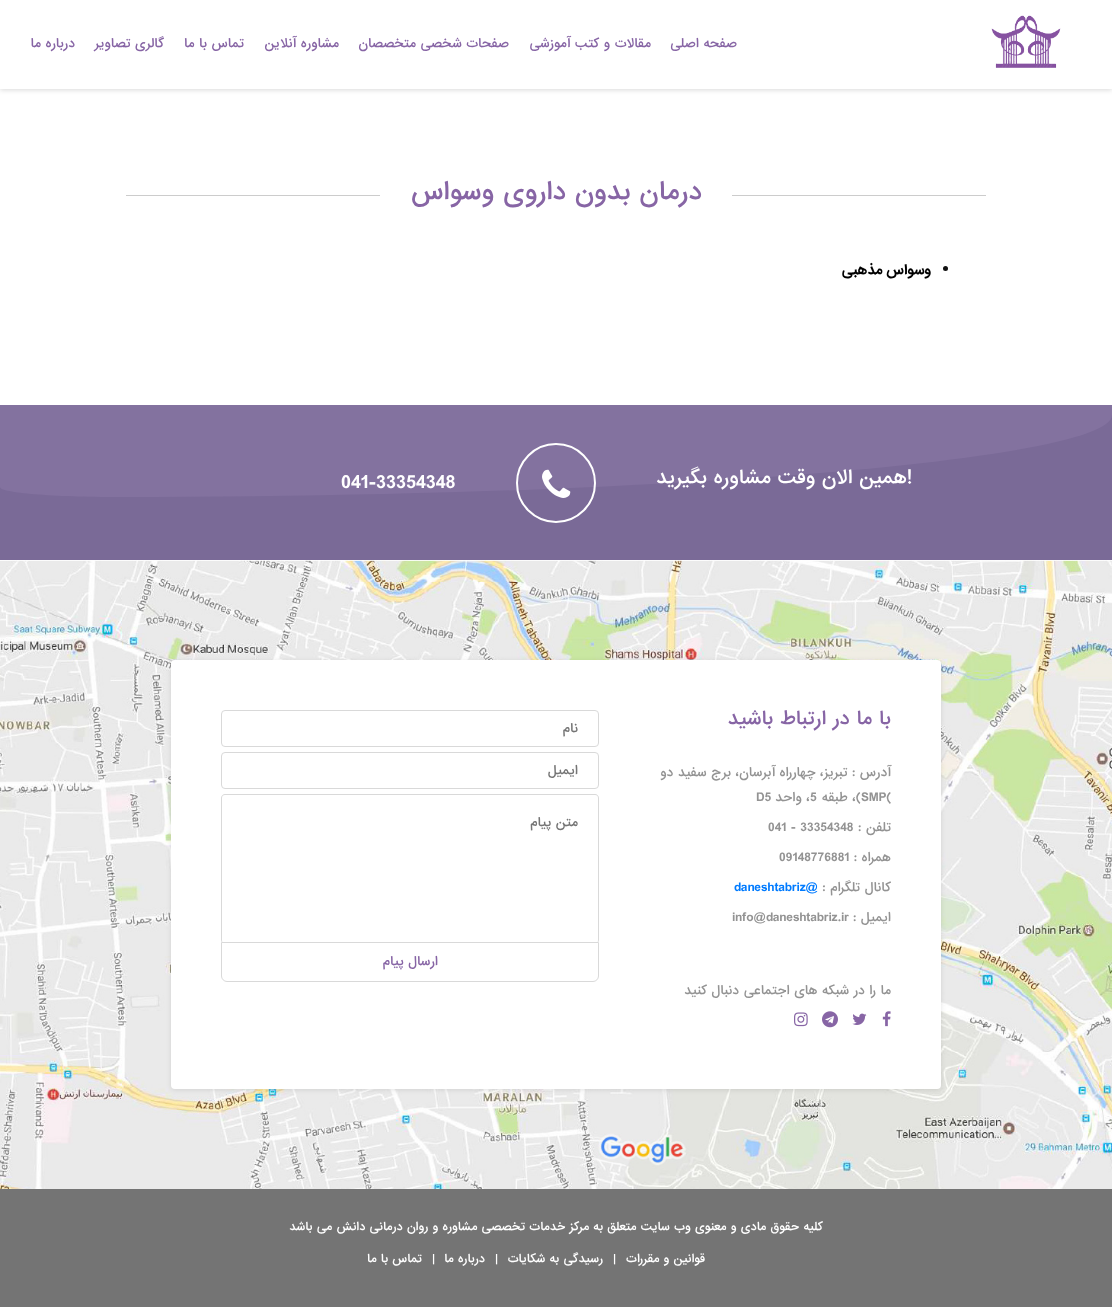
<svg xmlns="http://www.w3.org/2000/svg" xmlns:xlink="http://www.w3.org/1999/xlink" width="1112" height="1309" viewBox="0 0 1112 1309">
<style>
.cls-1{font:500 12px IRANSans;direction:rtl;fill:#8765a5}
.cls-2{font:500 24px IRANSans;direction:rtl;fill:#8765a5}
.cls-3{font:bold 13px IRANSans;direction:rtl;fill:#000000}
.cls-4{font:500 18px IRANSans;direction:rtl;fill:#ffffff}
.cls-5{font:500 18px IRANSans;fill:#ffffff}
.cls-6{font:500 18px IRANSans;direction:rtl;fill:#8765a5}
.cls-7{font:500 12px IRANSans;direction:rtl;fill:#939393}
.cls-8{font:500 12px IRANSans;fill:#939393}
.cls-9{font:500 12px IRANSans;fill:#007bff}
.cls-10{font:500 12px IRANSans;direction:rtl;fill:#757575}
.cls-11{font:500 11px IRANSans;direction:rtl;fill:#ffffff}
.cls-12{font:500 11px IRANSans;fill:#ffffff}
</style>
<rect width="100%" height="100%" fill="#ffffff"/>
<rect fill="#000000" fill-opacity="0.15" filter="blur(2.5px)" x="0" y="1" width="1112" height="89"/>
<rect fill="#ffffff" x="0" y="0" width="1112" height="89"/>
<image xlink:href="image0.png" x="991" y="15" width="70" height="53"/>
<rect fill="#cccccc" x="126" y="195" width="860" height="1"/>
<rect fill="#ffffff" x="380" y="195" width="352" height="1"/>
<circle fill="#111111" cx="945.5" cy="268.5" r="2.5"/>
<rect fill="#7a6a97" x="0" y="415" width="1112" height="145"/>
<path fill="#83729f" d="M0 405H1112V415C1112 460 667 497 119 497C53 497 0 493 0 487Z"/>
<circle fill="none" stroke="#ffffff" stroke-width="2" cx="556" cy="483" r="39"/>
<image xlink:href="image1.png" x="542" y="469" width="29" height="29"/>
<image xlink:href="image2.png" x="0" y="560" width="1112" height="629"/>
<rect fill="#000000" fill-opacity="0.1" filter="blur(2.5px)" x="171" y="661" width="770" height="429" rx="4"/>
<rect fill="#ffffff" x="171" y="660" width="770" height="429" rx="4"/>
<image xlink:href="image3.png" x="882" y="1011" width="9" height="16"/>
<image xlink:href="image4.png" x="852" y="1013" width="15" height="12"/>
<image xlink:href="image5.png" x="822" y="1011" width="16" height="17"/>
<image xlink:href="image6.png" x="794" y="1012" width="14" height="15"/>
<rect fill="none" stroke="#d9d9d9" x="221.5" y="710.5" width="377" height="36" rx="3.5"/>
<rect fill="none" stroke="#d9d9d9" x="221.5" y="752.5" width="377" height="36" rx="3.5"/>
<path fill="#d9d9d9" fill-rule="evenodd" d="M225 794H595C597 794 599 796 599 798V940C599 942 597 944 595 944H225C223 944 221 942 221 940V798C221 796 223 794 225 794ZM225 795H595C597 795 598 796 598 798V940C598 942 597 944 595 944H225C223 944 222 942 222 940V798C222 796 223 795 225 795Z"/>
<path fill="#ffffff" stroke="#d9d9d9" d="M221.5 942.5H598.5V976C598.5 979 596 981.5 593 981.5H227C224 981.5 221.5 979 221.5 976Z"/>
<rect fill="#747474" x="0" y="1189" width="1112" height="118"/>
<text class="cls-1" x="737" y="47">صفحه اصلی</text>
<text class="cls-1" x="651" y="47">مقالات و کتب آموزشی</text>
<text class="cls-1" x="509" y="47">صفحات شخصی متخصصان</text>
<text class="cls-1" x="339" y="47">مشاوره آنلاین</text>
<text class="cls-1" x="244" y="47">تماس با ما</text>
<text class="cls-1" x="164" y="47">گالری تصاویر</text>
<text class="cls-1" x="75" y="47">درباره ما</text>
<text class="cls-2" x="702" y="199">درمان بدون داروی وسواس</text>
<text class="cls-3" x="931" y="274">وسواس مذهبی</text>
<text class="cls-4" x="912" y="483">!همین الان وقت مشاوره بگیرید</text>
<text class="cls-5" x="341" y="488">041-33354348</text>
<text class="cls-6" x="891" y="724">با ما در ارتباط باشید</text>
<text class="cls-7" x="891" y="776">آدرس : تبریز، چهارراه آبرسان، برج سفید دو</text>
<text class="cls-8" x="861" y="801">SMP(</text>
<text class="cls-7" x="861" y="801">)، طبقه</text>
<text class="cls-8" x="810" y="801">5</text>
<text class="cls-7" x="810" y="801">، واحد</text>
<text class="cls-8" x="756" y="801">D5</text>
<text class="cls-7" x="891" y="831">تلفن :</text>
<text class="cls-8" x="768" y="831">041 - 33354348</text>
<text class="cls-7" x="891" y="861">همراه :</text>
<text class="cls-8" x="779" y="861">09148776881</text>
<text class="cls-7" x="891" y="891">کانال تلگرام :</text>
<text class="cls-9" x="734" y="891">daneshtabriz@</text>
<text class="cls-7" x="891" y="921">ایمیل :</text>
<text class="cls-8" x="732" y="921">info@daneshtabriz.ir</text>
<text class="cls-7" x="891" y="994">ما را در شبکه های اجتماعی دنبال کنید</text>
<text class="cls-10" x="578" y="732">نام</text>
<text class="cls-10" x="578" y="774">ایمیل</text>
<text class="cls-10" x="578" y="826">متن پیام</text>
<text class="cls-1" x="438" y="965">ارسال پیام</text>
<text class="cls-11" x="823" y="1230">کلیه حقوق مادی و معنوی وب سایت متعلق به مرکز خدمات تخصصی مشاوره و روان درمانی دانش می باشد</text>
<text class="cls-11" x="705" y="1262">قوانین و مقررات</text>
<text class="cls-12" x="613" y="1262">|</text>
<text class="cls-11" x="603" y="1262">رسیدگی به شکایات</text>
<text class="cls-12" x="495" y="1262">|</text>
<text class="cls-11" x="485" y="1262">درباره ما</text>
<text class="cls-12" x="432" y="1262">|</text>
<text class="cls-11" x="422" y="1262">تماس با ما</text>
</svg>
